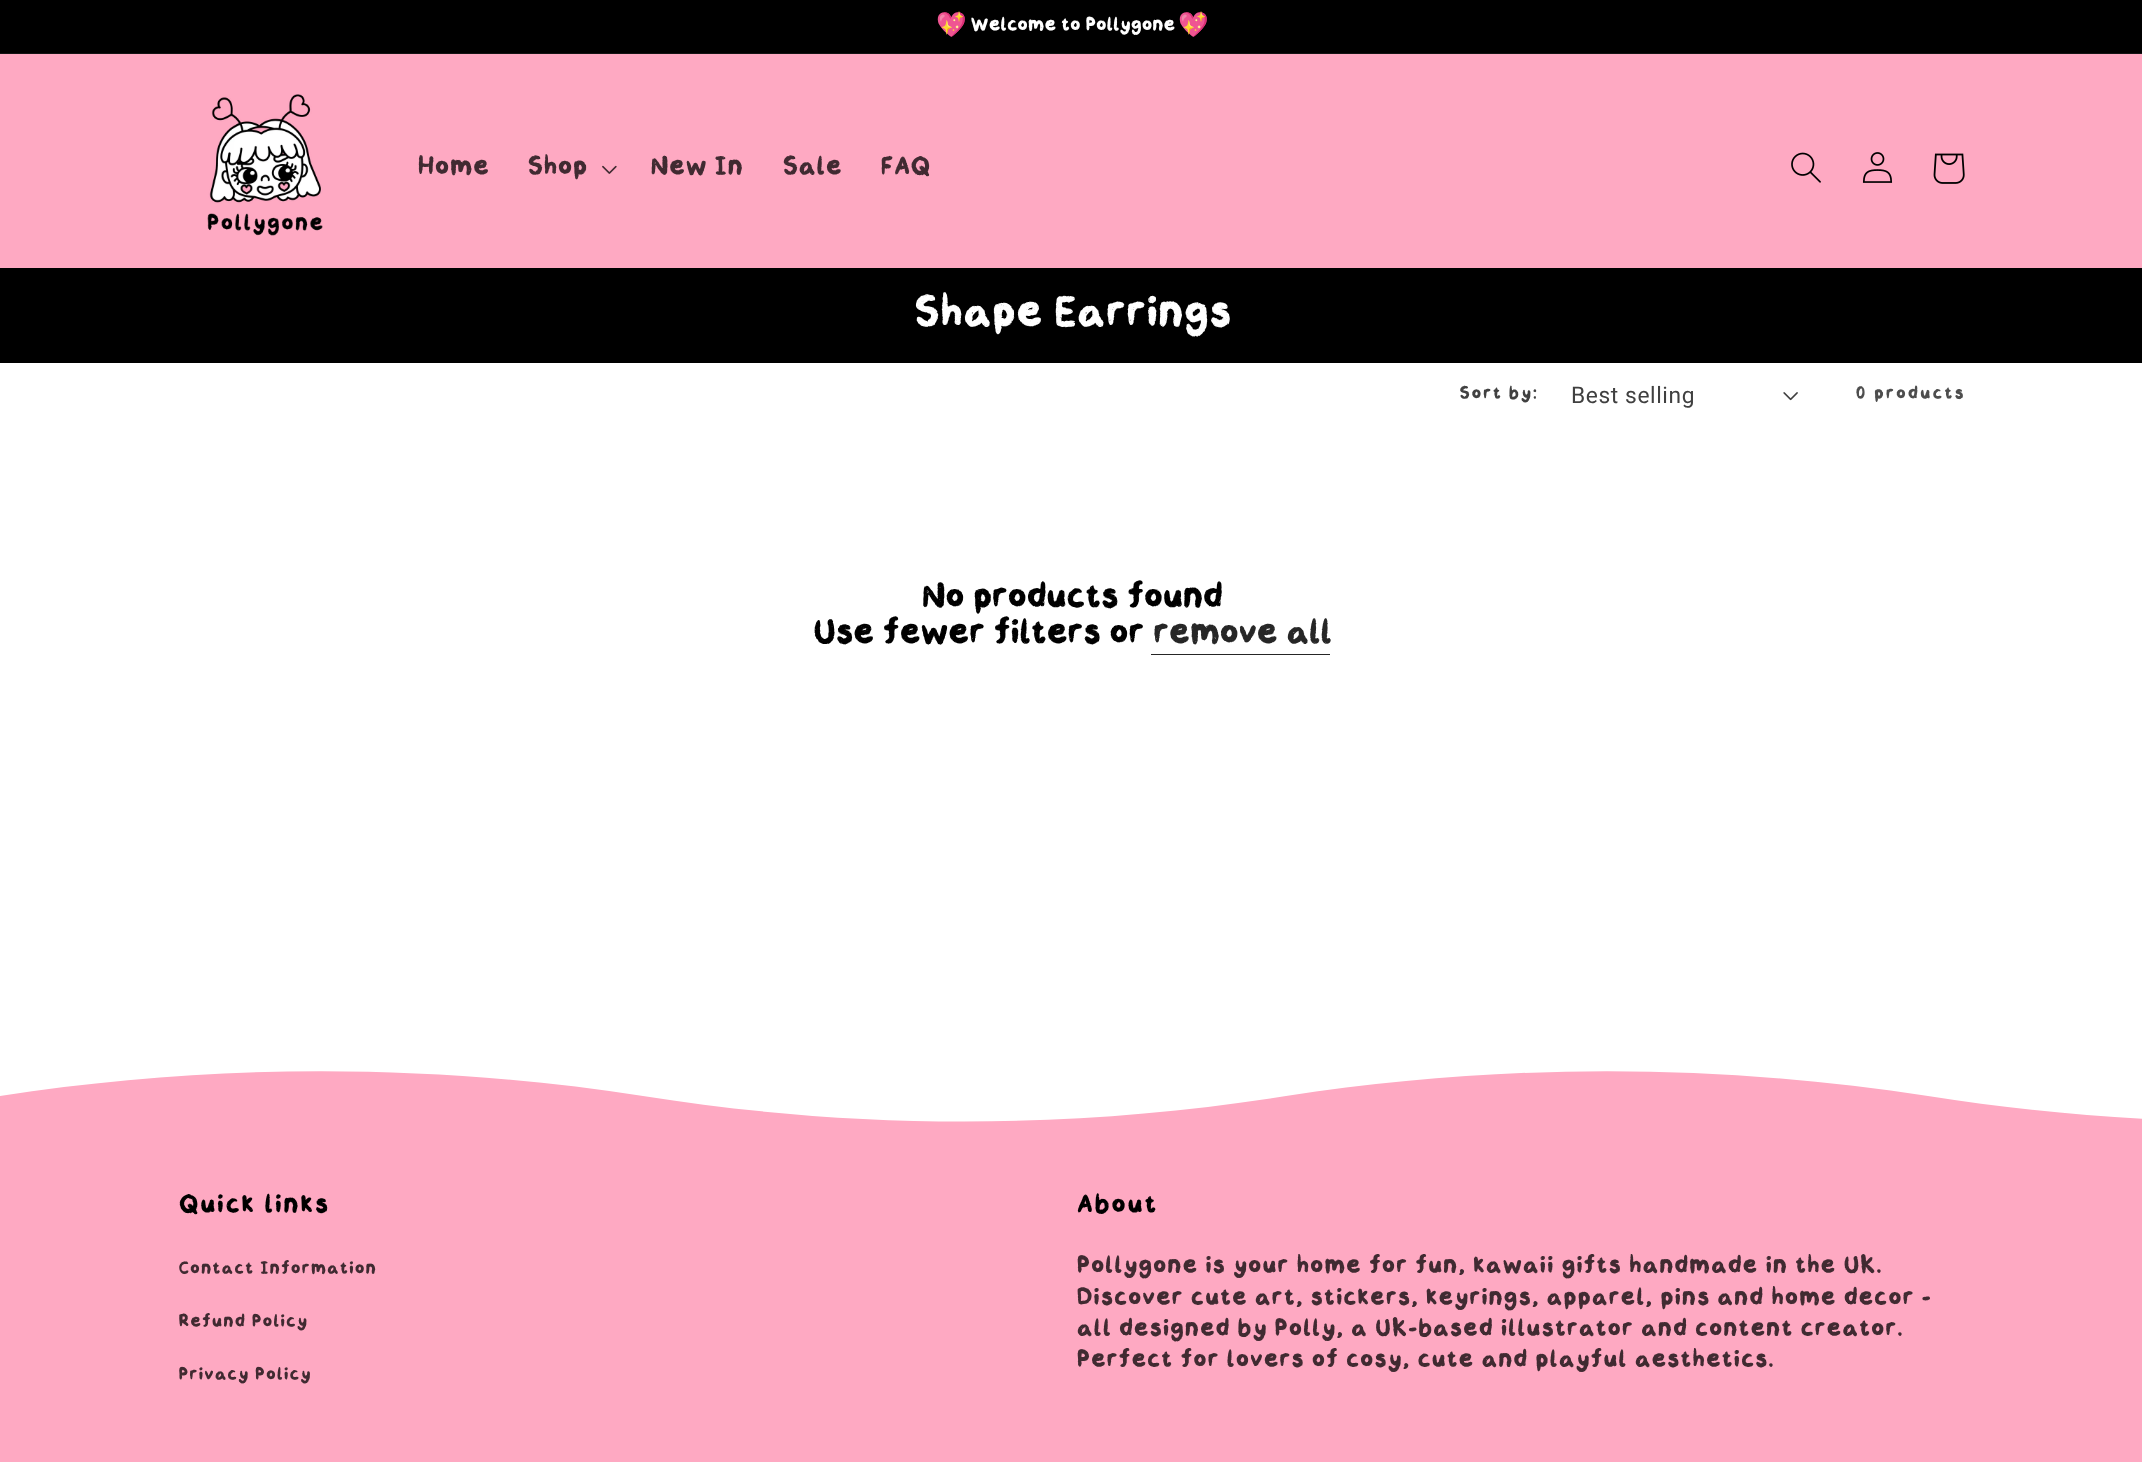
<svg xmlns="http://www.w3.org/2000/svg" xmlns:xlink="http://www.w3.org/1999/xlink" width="2142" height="1462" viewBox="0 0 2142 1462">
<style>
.cls-1{font:24.5px Noto Color Emoji;letter-spacing:-1.1px;fill:#ffffff}
.cls-2{font:24.5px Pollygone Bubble;letter-spacing:-1.1px;fill:#ffffff}
.cls-3{font:33.75px Pollygone Bubble;letter-spacing:-1.1px;fill:#402a31}
.cls-4{font:56.25px Pollygone Bubble;letter-spacing:-2.5px;fill:#ffffff}
.cls-5{font:22.75px Pollygone Bubble;letter-spacing:0.6px;fill:#404040}
.cls-6{font:22.75px Roboto;letter-spacing:0.6px;fill:#404040}
.cls-7{font:22.75px Pollygone Bubble;letter-spacing:1px;fill:#4d4d4d}
.cls-8{font:45px Pollygone Bubble;letter-spacing:-2.5px;fill:#000000}
.cls-9{font:45px Pollygone Bubble;letter-spacing:-2.5px;fill:#262626}
.cls-10{font:33.75px Pollygone Bubble;fill:#000000}
.cls-11{font:22.75px Pollygone Bubble;fill:#402a31}
.cls-12{font:31.25px Pollygone Bubble;letter-spacing:-0.62px;fill:#402a31}
</style>
<defs>
<clipPath id="clip1"><rect x="0" y="896" width="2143" height="250"/></clipPath>
</defs>
<rect width="100%" height="100%" fill="#ffffff"/>
<rect fill="#000000" x="0" y="0" width="2142" height="53"/>
<rect fill="#141414" x="0" y="53" width="2142" height="1"/>
<rect fill="#fea9c2" x="0" y="54" width="2142" height="214"/>
<image xlink:href="image0.png" x="207" y="94" width="116" height="142"/>
<image xlink:href="image1.png" x="602" y="165" width="15" height="9"/>
<image xlink:href="image2.png" x="1791" y="152" width="30" height="31"/>
<image xlink:href="image3.png" x="1862" y="152" width="31" height="31"/>
<image xlink:href="image4.png" x="1933" y="153" width="32" height="31"/>
<rect fill="#000000" x="0" y="268" width="2142" height="95"/>
<image xlink:href="image5.png" x="1783" y="392" width="15" height="9"/>
<rect fill="#262626" x="1151" y="654" width="179" height="1"/>
<g clip-path="url(#clip1)">
<path fill="#fea9c2" d="M0 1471V1096C214 1063 428 1063 643 1096C857 1130 1071 1130 1286 1096C1500 1063 1714 1063 1928 1096C2142 1130 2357 1130 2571 1096C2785 1063 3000 1063 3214 1096C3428 1130 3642 1130 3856 1096V1346Z"/>
</g>
<rect fill="#fea9c2" x="0" y="1146" width="2142" height="316"/>
<text class="cls-1" x="936" y="33">💖</text>
<text class="cls-2" x="970" y="33">Welcome to Pollygone</text>
<text class="cls-1" x="1178" y="33">💖</text>
<text class="cls-3" x="417" y="178">Home</text>
<text class="cls-3" x="527" y="178">Shop</text>
<text class="cls-3" x="650" y="178">New In</text>
<text class="cls-3" x="782" y="178">Sale</text>
<text class="cls-3" x="880" y="178">FAQ</text>
<text class="cls-4" x="913" y="332">Shape Earrings</text>
<text class="cls-5" x="1459" y="401">Sort by:</text>
<text class="cls-6" x="1571" y="403">Best selling</text>
<text class="cls-7" x="1855" y="401">0 products</text>
<text class="cls-8" x="921" y="612">No products found</text>
<text class="cls-8" x="812" y="648">Use fewer filters or</text>
<text class="cls-9" x="1152" y="648">remove all</text>
<text class="cls-10" x="178" y="1216">Quick links</text>
<text class="cls-11" x="178" y="1276">Contact Information</text>
<text class="cls-11" x="178" y="1329">Refund Policy</text>
<text class="cls-11" x="178" y="1382">Privacy Policy</text>
<text class="cls-10" x="1076" y="1216">About</text>
<text class="cls-12"><tspan x="1076" y="1276">Pollygone is your home for fun, kawaii gifts handmade in the UK.</tspan><tspan x="1076" y="1308">Discover cute art, stickers, keyrings, apparel, pins and home decor -</tspan><tspan x="1076" y="1339">all designed by Polly, a UK-based illustrator and content creator.</tspan><tspan x="1076" y="1370">Perfect for lovers of cosy, cute and playful aesthetics.</tspan></text>
</svg>
